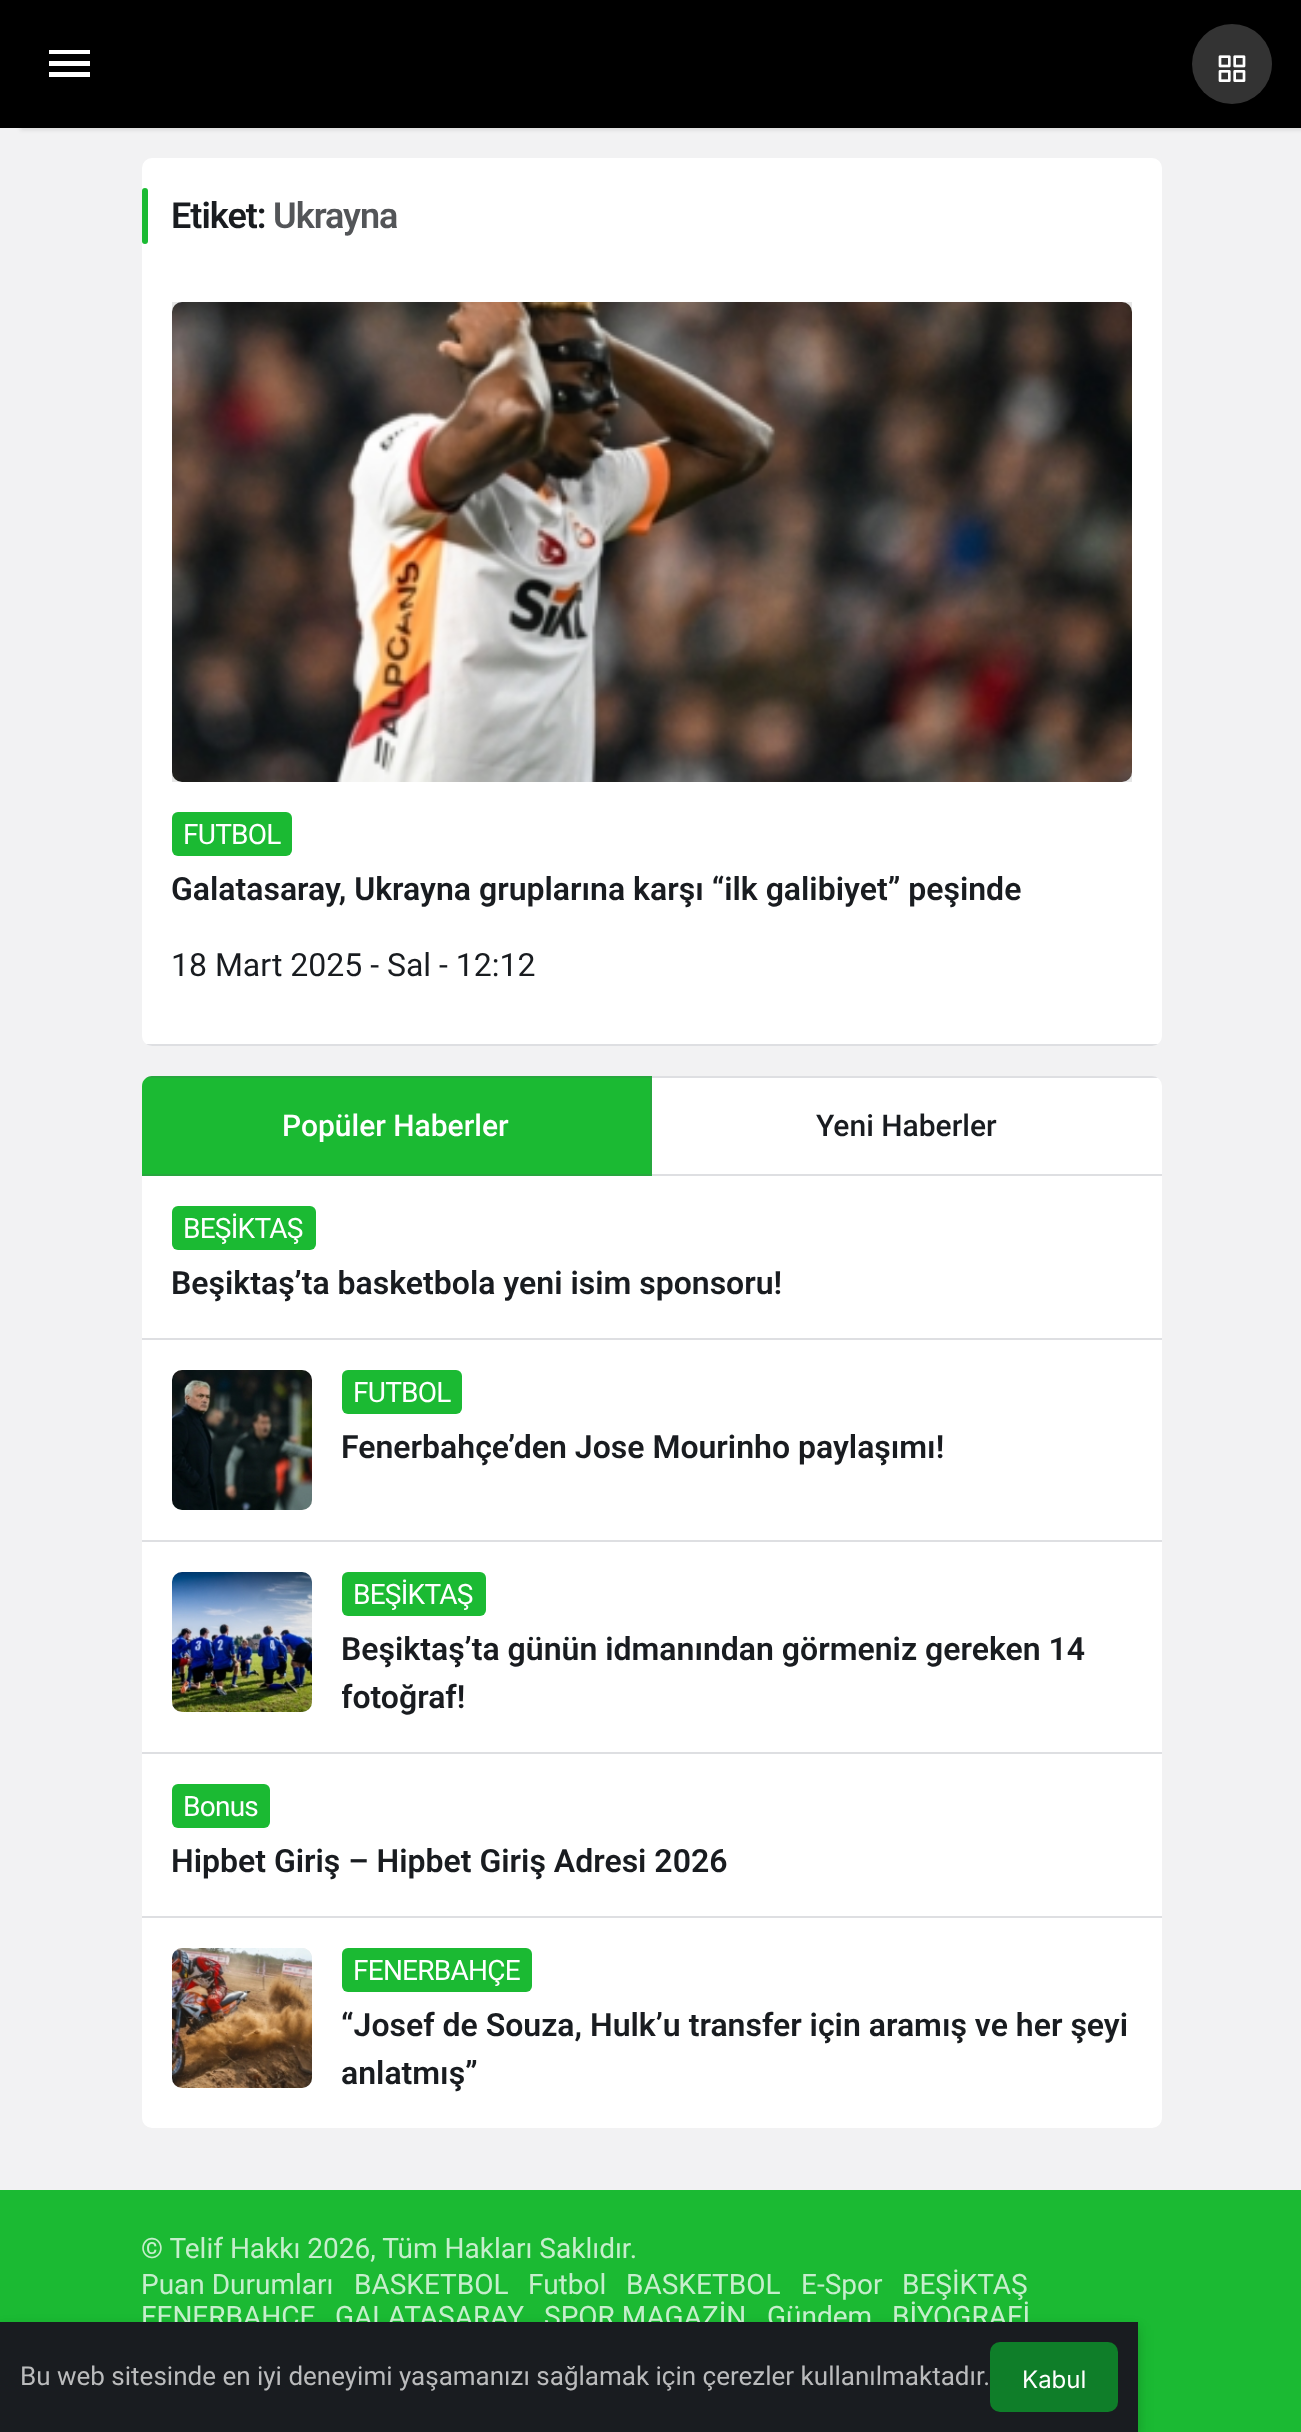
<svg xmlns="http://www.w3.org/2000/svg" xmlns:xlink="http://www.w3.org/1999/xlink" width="1301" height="2432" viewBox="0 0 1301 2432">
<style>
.cls-1{font:600 36px Roboto;letter-spacing:-1px;fill:#191c20}
.cls-2{font:600 36px Roboto;letter-spacing:-1px;fill:#535558}
.cls-3{font:28px Roboto;letter-spacing:-0.75px;fill:#ffffff}
.cls-4{font:600 32px Roboto;fill:#191c20}
.cls-5{font:32px Roboto;fill:#191c20}
.cls-6{font:500 30px Roboto;fill:#ffffff}
.cls-7{font:500 30px Roboto;fill:#191c20}
.cls-8{font:28px Roboto;fill:#c6eecc}
.cls-9{font:26px Roboto;fill:#babbbc}
.cls-10{font:24px Inter;fill:#ffffff}
</style>
<defs>
<clipPath id="clip1"><rect x="142" y="158" width="1020" height="888" rx="10"/></clipPath>
<clipPath id="clip2"><rect x="142" y="1076" width="1020" height="1052" rx="10"/></clipPath>
<clipPath id="clip3"><rect x="342" y="1626" width="790" height="96"/></clipPath>
</defs>
<rect width="100%" height="100%" fill="#f2f2f3"/>
<rect fill="#000000" fill-opacity="0.1" filter="blur(2px)" x="20" y="2" width="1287" height="128"/>
<rect fill="#000000" x="0" y="0" width="1301" height="128"/>
<path fill="#ffffff" d="M49 50H90V54H49ZM49 66V61H90V66ZM49 77V72H90V77Z"/>
<circle fill="#333333" cx="1232" cy="64" r="40"/>
<image xlink:href="image0.png" x="1218" y="55" width="28" height="27"/>
<rect fill="#ffffff" x="142" y="158" width="1020" height="888" rx="10"/>
<rect fill="#1bba33" x="142" y="188" width="6" height="56" rx="3"/>
<g clip-path="url(#clip1)">
<rect fill="#5b616e" fill-opacity="0.2" x="142" y="1044" width="1020" height="2"/>
</g>
<rect fill="#e6e6e6" x="172" y="302" width="960" height="480"/>
<image xlink:href="image1.png" x="172" y="302" width="960" height="480"/>
<rect fill="#1bba33" x="172" y="812" width="120" height="44" rx="6"/>
<rect fill="#ffffff" x="142" y="1076" width="1020" height="1052" rx="10"/>
<path fill="#1bba33" d="M152 1076H652V1176H142V1086C142 1080.5 146.5 1076 152 1076Z"/>
<path fill="#5b616e" fill-opacity="0.2" d="M152 1076C150 1076 148 1077 146 1078H650L652 1076Z"/>
<path fill="#5b616e" fill-opacity="0.2" d="M652 1076V1176L650 1174V1078Z"/>
<path fill="#5b616e" fill-opacity="0.2" d="M652 1176H142V1174H650Z"/>
<g clip-path="url(#clip2)">
<rect fill="#5b616e" fill-opacity="0.2" x="652" y="1076" width="510" height="2"/>
</g>
<rect fill="#dedfe2" x="652" y="1174" width="510" height="2"/>
<rect fill="#dedfe2" x="142" y="1338" width="1020" height="2"/>
<rect fill="#1bba33" x="172" y="1206" width="144" height="44" rx="6"/>
<rect fill="#dedfe2" x="142" y="1540" width="1020" height="2"/>
<rect fill="#e6e6e6" x="172" y="1370" width="140" height="140" rx="10"/>
<image xlink:href="image2.png" x="172" y="1370" width="140" height="140"/>
<rect fill="#1bba33" x="342" y="1370" width="120" height="44" rx="6"/>
<rect fill="#dedfe2" x="142" y="1752" width="1020" height="2"/>
<rect fill="#e6e6e6" x="172" y="1572" width="140" height="140" rx="10"/>
<image xlink:href="image3.png" x="172" y="1572" width="140" height="140"/>
<rect fill="#1bba33" x="342" y="1572" width="144" height="44" rx="6"/>
<rect fill="#dedfe2" x="142" y="1916" width="1020" height="2"/>
<rect fill="#1bba33" x="172" y="1784" width="98" height="44" rx="6"/>
<rect fill="#e6e6e6" x="172" y="1948" width="140" height="140" rx="10"/>
<image xlink:href="image4.png" x="172" y="1948" width="140" height="140"/>
<rect fill="#1bba33" x="342" y="1948" width="190" height="44" rx="6"/>
<rect fill="#1bba33" x="0" y="2190" width="1301" height="242"/>
<rect fill="#000000" fill-opacity="0.08" filter="blur(4px)" x="0" y="2326" width="1138" height="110"/>
<rect fill="#000000" fill-opacity="0.12" filter="blur(8px)" x="0" y="2330" width="1138" height="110"/>
<text class="cls-1" x="171" y="228">Etiket:</text>
<text class="cls-2" x="273" y="228">Ukrayna</text>
<text class="cls-3" x="183" y="844">FUTBOL</text>
<text class="cls-4" x="171" y="900">Galatasaray, Ukrayna gruplarına karşı “ilk galibiyet” peşinde</text>
<text class="cls-5" x="171" y="976">18 Mart 2025 - Sal - 12:12</text>
<text class="cls-6" x="282" y="1136">Popüler Haberler</text>
<text class="cls-7" x="816" y="1136">Yeni Haberler</text>
<text class="cls-3" x="183" y="1238">BEŞİKTAŞ</text>
<text class="cls-4" x="171" y="1294">Beşiktaş’ta basketbola yeni isim sponsoru!</text>
<text class="cls-3" x="353" y="1402">FUTBOL</text>
<text class="cls-4" x="341" y="1458">Fenerbahçe’den Jose Mourinho paylaşımı!</text>
<text class="cls-3" x="353" y="1604">BEŞİKTAŞ</text>
<text class="cls-4" x="341" y="1660">Beşiktaş’ta günün idmanından görmeniz gereken 14</text>
<g clip-path="url(#clip3)">
<text class="cls-4" x="341" y="1708">fotoğraf!</text>
</g>
<text class="cls-3" x="183" y="1816">Bonus</text>
<text class="cls-4" x="171" y="1872">Hipbet Giriş – Hipbet Giriş Adresi 2026</text>
<text class="cls-3" x="353" y="1980">FENERBAHÇE</text>
<text class="cls-4"><tspan x="341" y="2036">“Josef de Souza, Hulk’u transfer için aramış ve her şeyi</tspan><tspan x="341" y="2084">anlatmış”</tspan></text>
<text class="cls-8"><tspan x="141" y="2258">© Telif Hakkı 2026, Tüm Hakları Saklıdır.</tspan><tspan x="141" y="2294">Puan Durumları</tspan></text>
<text class="cls-8" x="354" y="2294">BASKETBOL</text>
<text class="cls-8" x="528" y="2294">Futbol</text>
<text class="cls-8" x="626" y="2294">BASKETBOL</text>
<text class="cls-8" x="801" y="2294">E-Spor</text>
<text class="cls-8" x="902" y="2294">BEŞİKTAŞ</text>
<text class="cls-8" x="141" y="2326">FENERBAHÇE</text>
<text class="cls-8" x="335" y="2326">GALATASARAY</text>
<text class="cls-8" x="544" y="2326">SPOR MAGAZİN</text>
<text class="cls-8" x="767" y="2326">Gündem</text>
<text class="cls-8" x="892" y="2326">BİYOGRAFİ</text>
<rect fill="#191c20" x="0" y="2322" width="1138" height="110"/>
<text class="cls-9" x="20" y="2385">Bu web sitesinde en iyi deneyimi yaşamanızı sağlamak için çerezler kullanılmaktadır.</text>
<rect fill="#0f7e29" x="990" y="2342" width="128" height="70" rx="10"/>
<text class="cls-10" x="1022" y="2388">Kabul</text>
</svg>
